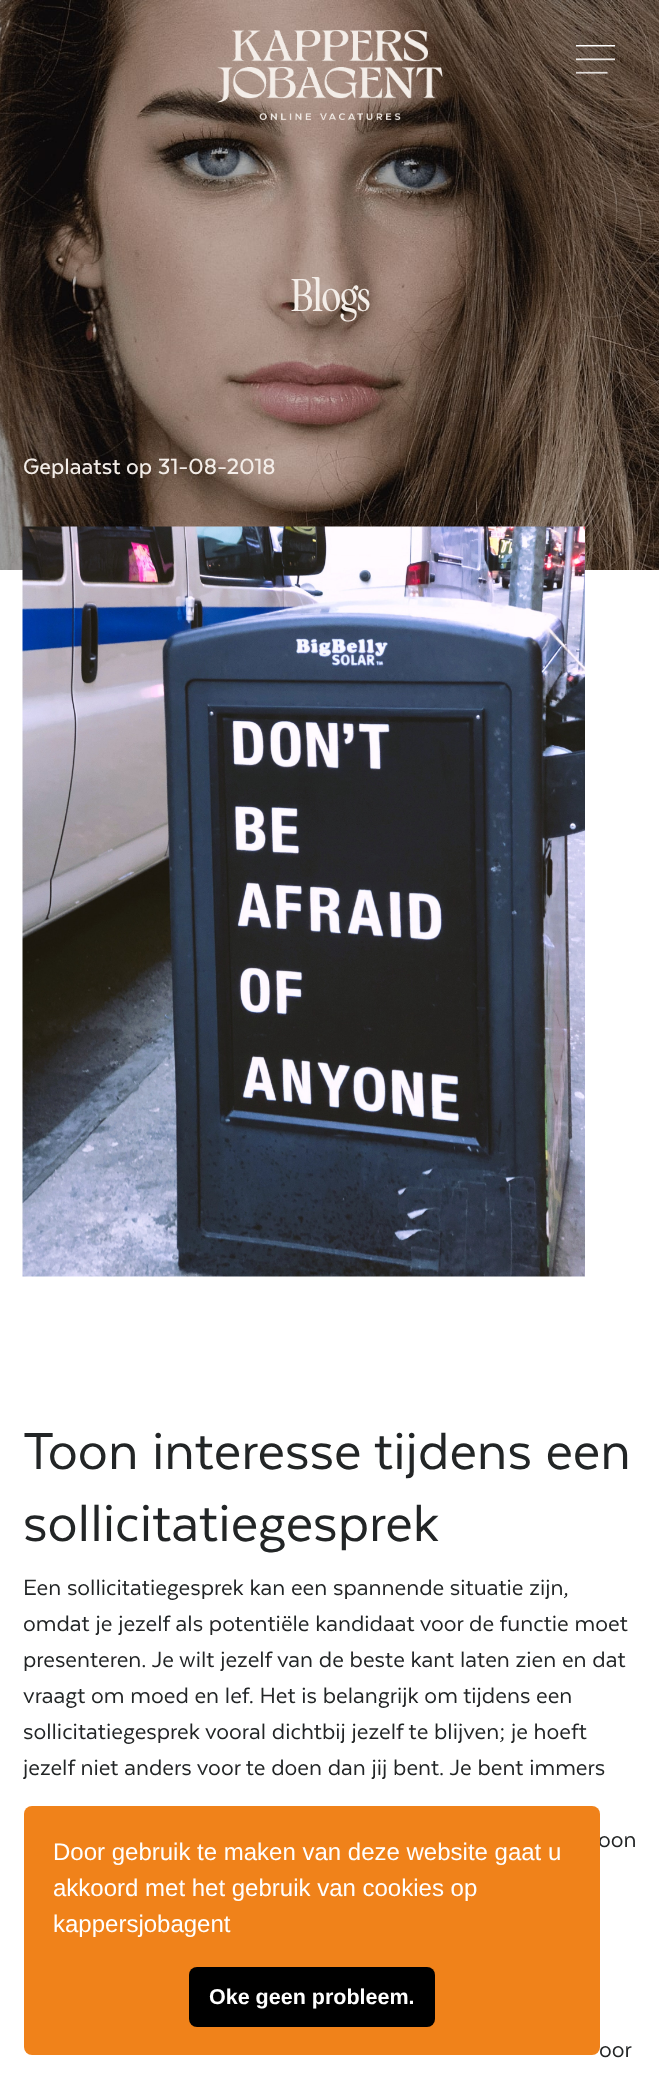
<svg xmlns="http://www.w3.org/2000/svg" xmlns:xlink="http://www.w3.org/1999/xlink" width="659" height="2079" viewBox="0 0 659 2079">
<style>
.cls-1{font:45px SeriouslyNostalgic;fill:#f3ede8}
.cls-2{font:500 25.5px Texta;fill:#f3ede8}
.cls-3{font:60px Texta;fill:#222526}
.cls-4{font:25.5px Texta;fill:#222526}
.cls-5{font:24px Liberation Sans;fill:#ffffff}
.cls-6{font:bold 21.5px Liberation Sans;fill:#ffffff}
</style>
<rect width="100%" height="100%" fill="#ffffff"/>
<image xlink:href="image2.png" x="0" y="0" width="659" height="570"/>
<image xlink:href="image0.png" x="217" y="30" width="226" height="90"/>
<image xlink:href="image1.png" x="576" y="45" width="39" height="29"/>
<image xlink:href="image3.png" x="22" y="526" width="563" height="751"/>
<text class="cls-1" x="291" y="311">Blogs</text>
<text class="cls-2" x="23" y="474">Geplaatst op 31-08-2018</text>
<text class="cls-3"><tspan x="23" y="1469">Toon interesse tijdens een</tspan><tspan x="23" y="1541">sollicitatiegesprek</tspan></text>
<text class="cls-4"><tspan x="23" y="1595">Een sollicitatiegesprek kan een spannende situatie zijn,</tspan><tspan x="23" y="1631">omdat je jezelf als potentiële kandidaat voor de functie moet</tspan><tspan x="23" y="1667">presenteren. Je wilt jezelf van de beste kant laten zien en dat</tspan><tspan x="23" y="1703">vraagt om moed en lef. Het is belangrijk om tijdens een</tspan><tspan x="23" y="1739">sollicitatiegesprek vooral dichtbij jezelf te blijven; je hoeft</tspan><tspan x="23" y="1775">jezelf niet anders voor te doen dan jij bent. Je bent immers</tspan></text>
<text class="cls-4" x="598" y="1847">oon</text>
<text class="cls-4" x="599" y="2057">oor</text>
<rect fill="#f0821a" x="24" y="1806" width="576" height="249" rx="8"/>
<text class="cls-5"><tspan x="53" y="1860">Door gebruik te maken van deze website gaat u</tspan><tspan x="53" y="1896">akkoord met het gebruik van cookies op</tspan><tspan x="53" y="1932">kappersjobagent</tspan></text>
<rect fill="#000000" x="189" y="1967" width="246" height="60" rx="8"/>
<text class="cls-6" x="209" y="2004">Oke geen probleem.</text>
</svg>
